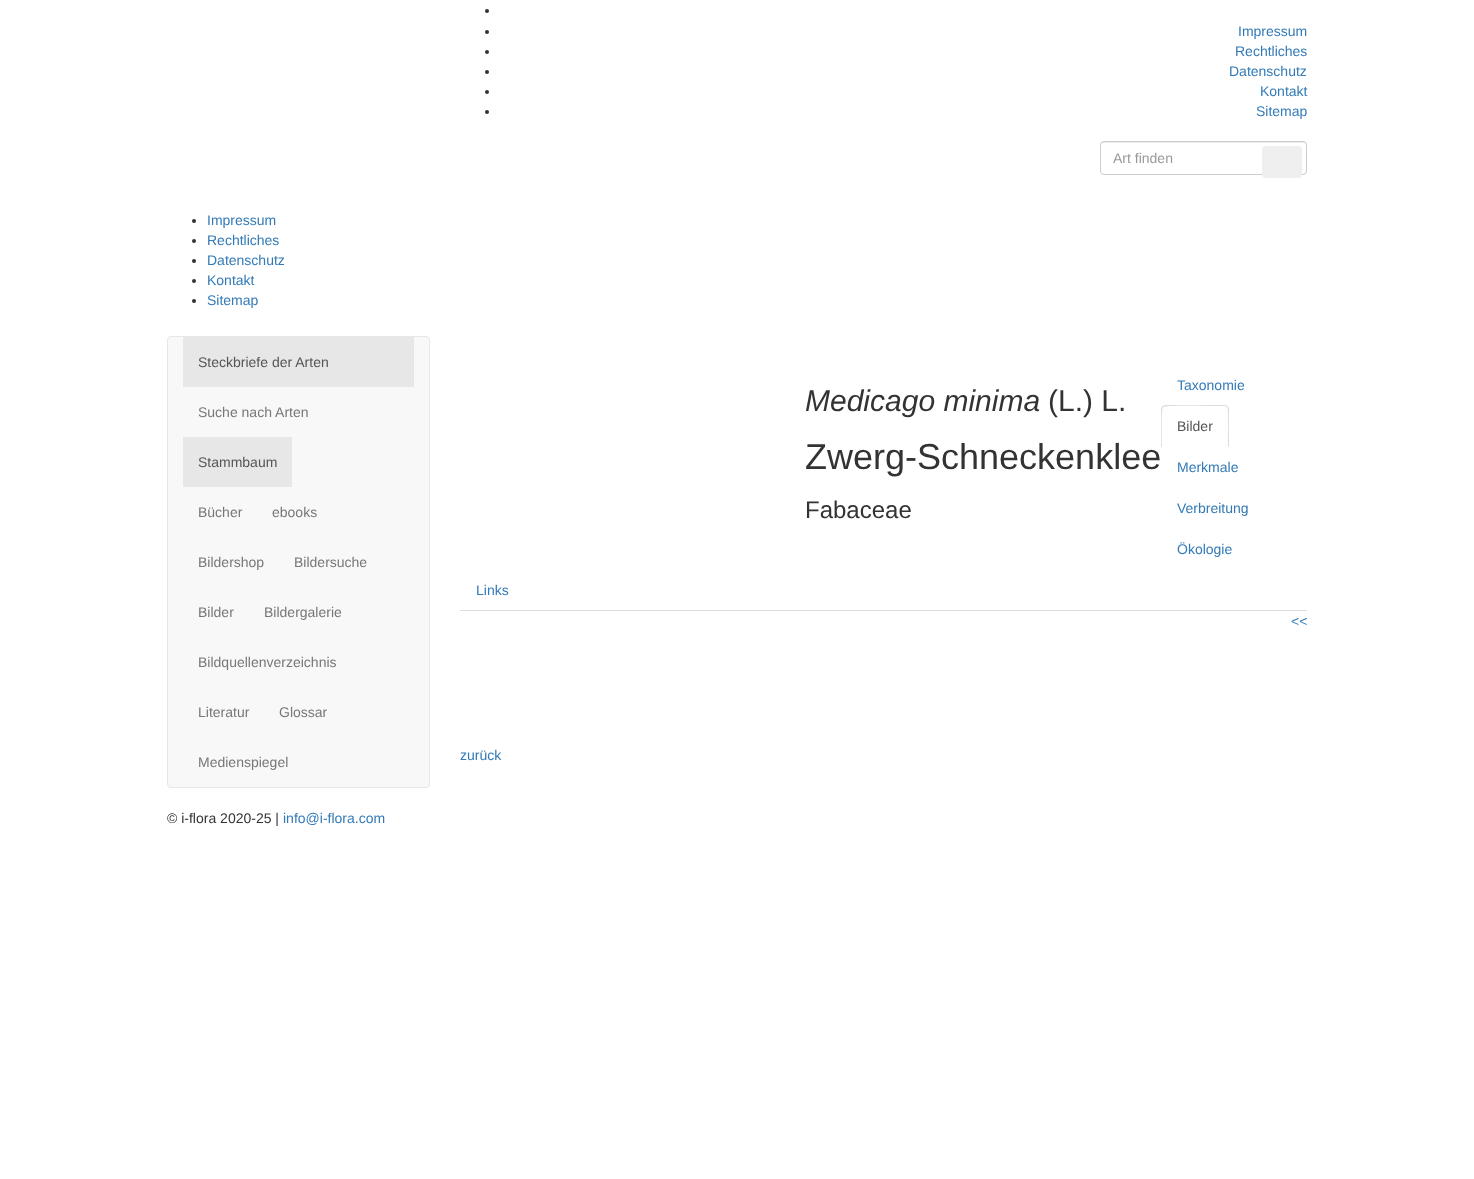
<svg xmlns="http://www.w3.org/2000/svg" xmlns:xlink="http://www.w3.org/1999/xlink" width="1474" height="1179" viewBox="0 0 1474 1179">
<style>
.cls-1{font:14px Liberation Sans;fill:#337ab7}
.cls-2{font:14px Liberation Sans;fill:#999999}
.cls-3{font:14px Liberation Sans;fill:#555555}
.cls-4{font:14px Liberation Sans;fill:#777777}
.cls-5{font:italic 30px Liberation Sans;fill:#333333}
.cls-6{font:30px Liberation Sans;fill:#333333}
.cls-7{font:36px Liberation Sans;fill:#333333}
.cls-8{font:24px Liberation Sans;fill:#333333}
.cls-9{font:14px Liberation Sans;fill:#333333}
</style>
<rect width="100%" height="100%" fill="#ffffff"/>
<circle fill="#333333" cx="487" cy="11" r="2"/>
<circle fill="#333333" cx="487" cy="32" r="2"/>
<circle fill="#333333" cx="487" cy="52" r="2"/>
<circle fill="#333333" cx="487" cy="72" r="2"/>
<circle fill="#333333" cx="487" cy="92" r="2"/>
<circle fill="#333333" cx="487" cy="112" r="2"/>
<path fill="#ececec" d="M1104 143H1303C1305 143 1306 144 1306 146C1306 144 1305 142 1303 142H1104C1102 142 1101 144 1101 146C1101 144 1102 143 1104 143Z"/>
<rect fill="none" stroke="#cccccc" x="1100.5" y="141.5" width="206" height="33" rx="3.5"/>
<rect fill="#efefef" x="1262" y="146" width="40" height="32" rx="4"/>
<circle fill="#333333" cx="194" cy="221" r="2"/>
<circle fill="#333333" cx="194" cy="241" r="2"/>
<circle fill="#333333" cx="194" cy="261" r="2"/>
<circle fill="#333333" cx="194" cy="281" r="2"/>
<circle fill="#333333" cx="194" cy="301" r="2"/>
<rect fill="#f8f8f8" stroke="#e7e7e7" x="167.5" y="336.5" width="262" height="451" rx="3.5"/>
<rect fill="#e7e7e7" x="183" y="337" width="231" height="50"/>
<rect fill="#e7e7e7" x="183" y="437" width="109" height="50"/>
<rect fill="#dddddd" x="460" y="610" width="847" height="1"/>
<path fill="#dddddd" d="M1165 405L1162 406L1163 407C1165 405 1209 406 1215 406H1225L1227 407L1228 406L1225 405Z"/>
<path fill="#dddddd" d="M1229 447V409C1229 408 1228 407 1228 406L1227 407C1229 409 1228 441 1228 446Z"/>
<path fill="#dddddd" d="M1161 447L1162 446C1162 441 1161 409 1163 407L1162 406L1161 409Z"/>
<text class="cls-1" x="1238" y="36">Impressum</text>
<text class="cls-1" x="1235" y="56">Rechtliches</text>
<text class="cls-1" x="1229" y="76">Datenschutz</text>
<text class="cls-1" x="1260" y="96">Kontakt</text>
<text class="cls-1" x="1256" y="116">Sitemap</text>
<text class="cls-2" x="1113" y="163">Art finden</text>
<text class="cls-1"><tspan x="207" y="225">Impressum</tspan><tspan x="207" y="245">Rechtliches</tspan><tspan x="207" y="265">Datenschutz</tspan><tspan x="207" y="285">Kontakt</tspan><tspan x="207" y="305">Sitemap</tspan></text>
<text class="cls-3" x="198" y="367">Steckbriefe der Arten</text>
<text class="cls-4" x="198" y="417">Suche nach Arten</text>
<text class="cls-3" x="198" y="467">Stammbaum</text>
<text class="cls-4" x="198" y="517">Bücher</text>
<text class="cls-4" x="272" y="517">ebooks</text>
<text class="cls-4" x="198" y="567">Bildershop</text>
<text class="cls-4" x="294" y="567">Bildersuche</text>
<text class="cls-4" x="198" y="617">Bilder</text>
<text class="cls-4" x="264" y="617">Bildergalerie</text>
<text class="cls-4" x="198" y="667">Bildquellenverzeichnis</text>
<text class="cls-4" x="198" y="717">Literatur</text>
<text class="cls-4" x="279" y="717">Glossar</text>
<text class="cls-4" x="198" y="767">Medienspiegel</text>
<text class="cls-1" x="1177" y="390">Taxonomie</text>
<text class="cls-3" x="1177" y="431">Bilder</text>
<text class="cls-1" x="1177" y="472">Merkmale</text>
<text class="cls-1" x="1177" y="513">Verbreitung</text>
<text class="cls-1" x="1177" y="554">Ökologie</text>
<text class="cls-1" x="476" y="595">Links</text>
<text class="cls-5" x="805" y="411">Medicago minima</text>
<text class="cls-6" x="1048" y="411">(L.) L.</text>
<text class="cls-7" x="805" y="469">Zwerg-Schneckenklee</text>
<text class="cls-8" x="805" y="518">Fabaceae</text>
<text class="cls-1" x="1291" y="626">&lt;&lt;</text>
<text class="cls-1" x="460" y="760">zurück</text>
<text class="cls-9" x="167" y="823">© i-flora 2020-25 |</text>
<text class="cls-1" x="283" y="823">info@i-flora.com</text>
</svg>
